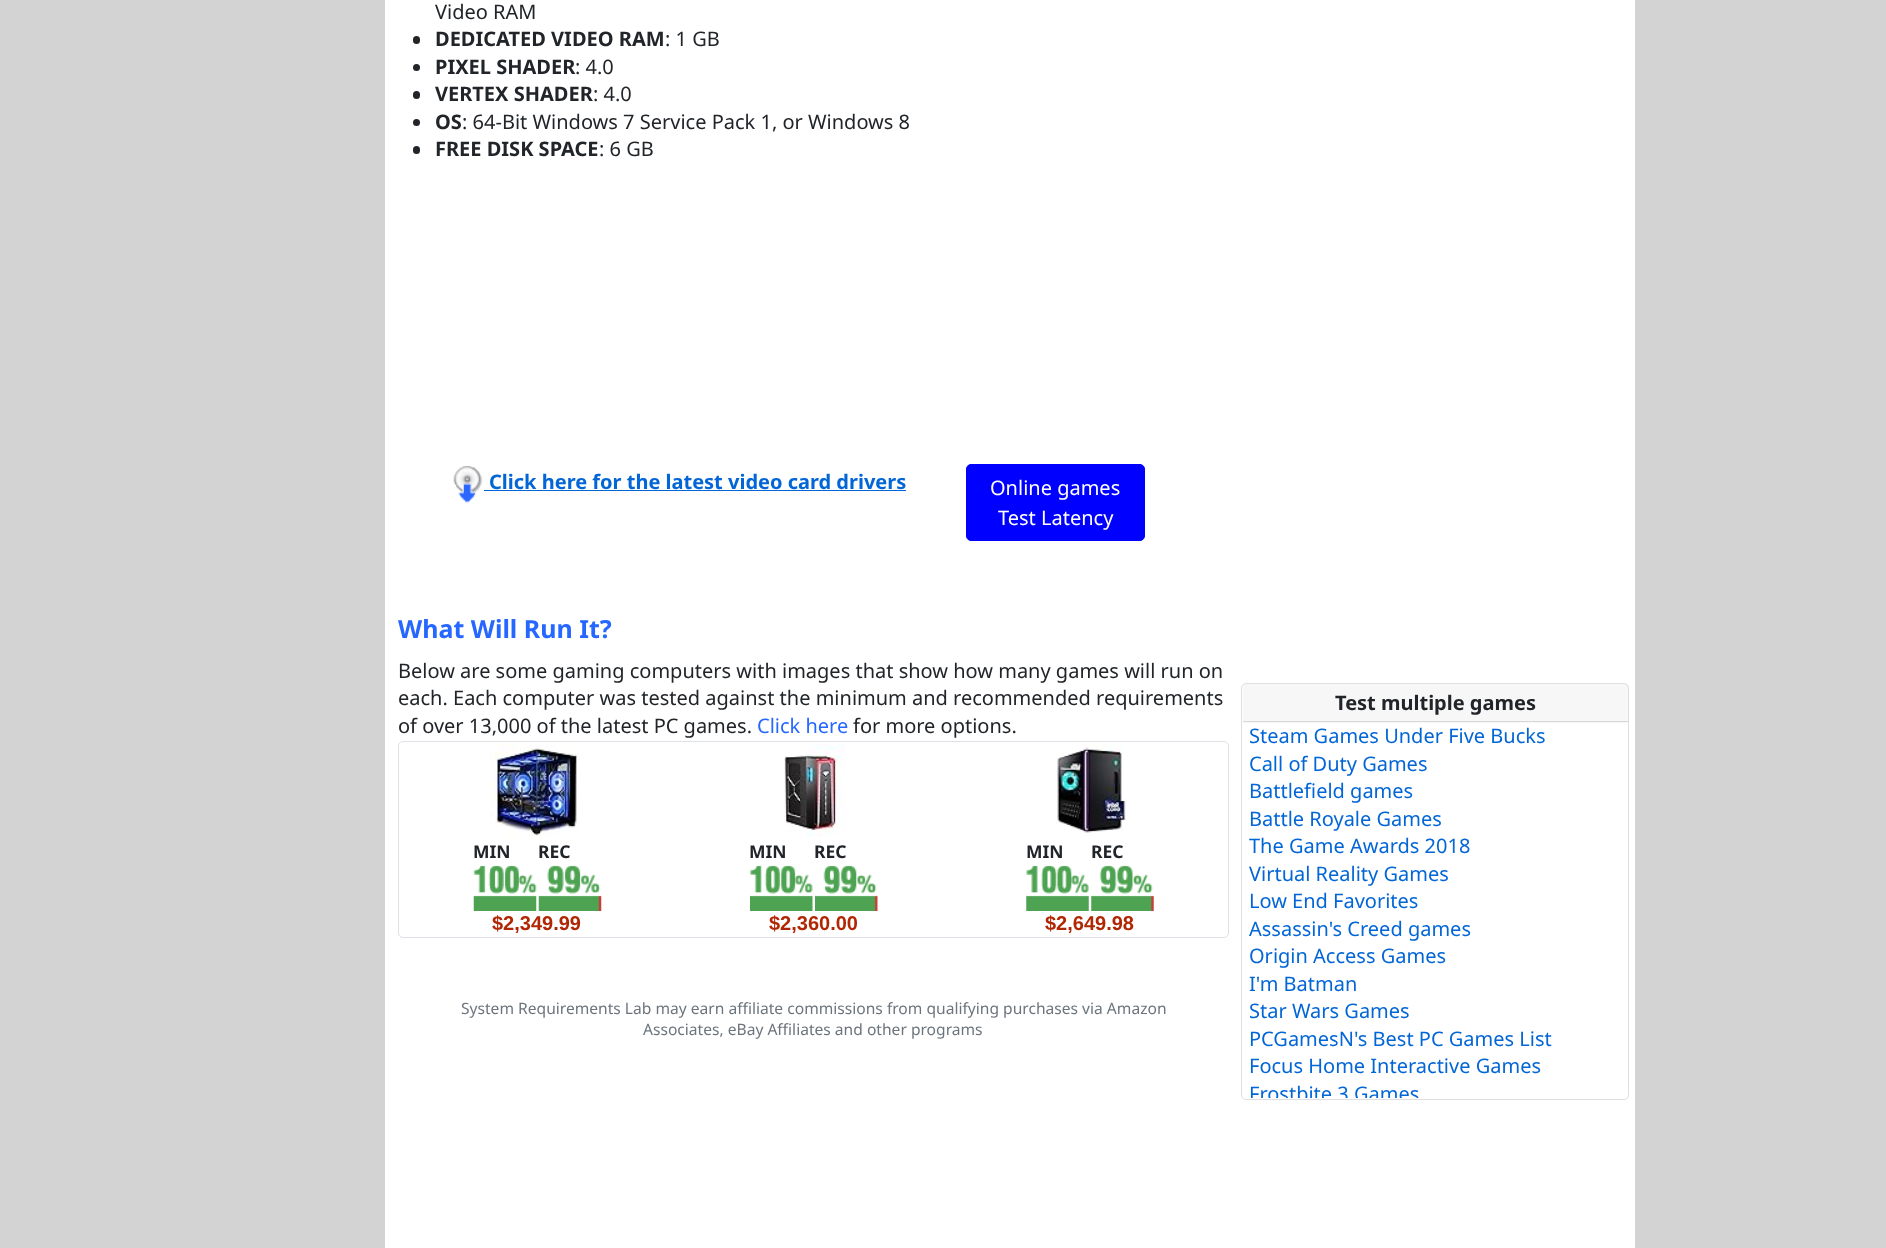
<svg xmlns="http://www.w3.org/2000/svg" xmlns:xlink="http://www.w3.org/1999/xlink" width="1886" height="1248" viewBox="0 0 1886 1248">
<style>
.cls-1{font:20px Noto Sans;fill:#212529}
.cls-2{font:bold 20px Noto Sans;fill:#212529}
.cls-3{font:bold 20px Noto Sans;fill:#0366d6}
.cls-4{font:20px Noto Sans;fill:#ffffff}
.cls-5{font:bold 25px Noto Sans;fill:#2667ff}
.cls-6{font:20px Noto Sans;fill:#2667ff}
.cls-7{font:bold 17.5px Noto Sans;fill:#212529}
.cls-8{font:bold 20px Liberation Sans;fill:#b12704}
.cls-9{font:15.6px Noto Sans;fill:#6c757d}
.cls-10{font:20px Noto Sans;fill:#0366d6}
</style>
<defs>
<clipPath id="clip1"><rect x="1249" y="723" width="379" height="375"/></clipPath>
</defs>
<rect width="100%" height="100%" fill="#ffffff"/>
<rect fill="#d3d3d3" x="0" y="0" width="385" height="1248"/>
<rect fill="#212529" x="413" y="36" width="7" height="8" rx="3.5"/>
<circle fill="#212529" cx="416.5" cy="67.5" r="3.5"/>
<rect fill="#212529" x="413" y="91" width="7" height="8" rx="3.5"/>
<circle fill="#212529" cx="416.5" cy="122.5" r="3.5"/>
<rect fill="#212529" x="413" y="146" width="7" height="8" rx="3.5"/>
<image xlink:href="image0.png" x="453" y="465" width="30" height="38"/>
<rect fill="#0366d6" x="484" y="490" width="422" height="1"/>
<rect fill="#0000ff" stroke="#0000ff" x="966.5" y="464.5" width="178" height="76" rx="4.5"/>
<rect fill="none" stroke="#dee2e6" x="398.5" y="741.5" width="830" height="196" rx="4.5"/>
<image xlink:href="image1.png" x="490" y="743" width="90" height="94"/>
<image xlink:href="image2.png" x="473" y="865" width="64" height="46"/>
<image xlink:href="image3.png" x="538" y="865" width="64" height="46"/>
<image xlink:href="image4.png" x="784" y="743" width="62" height="94"/>
<image xlink:href="image5.png" x="750" y="865" width="63" height="46"/>
<image xlink:href="image6.png" x="815" y="865" width="63" height="46"/>
<image xlink:href="image7.png" x="1055" y="743" width="71" height="94"/>
<image xlink:href="image8.png" x="1026" y="865" width="63" height="46"/>
<image xlink:href="image9.png" x="1091" y="865" width="63" height="46"/>
<rect fill="none" stroke="#dfdfdf" x="1241.5" y="683.5" width="387" height="416" rx="4.5"/>
<rect fill="#000000" fill-opacity="0.03" x="1243" y="684" width="385" height="39"/>
<rect fill="#d8d8d8" x="1243" y="721" width="385" height="1"/>
<rect fill="#d3d3d3" x="1635" y="0" width="251" height="1248"/>
<text class="cls-1" x="435" y="19">Video RAM</text>
<text class="cls-2" x="435" y="46">DEDICATED VIDEO RAM</text>
<text class="cls-1" x="665" y="46">: 1 GB</text>
<text class="cls-2" x="435" y="74">PIXEL SHADER</text>
<text class="cls-1" x="575" y="74">: 4.0</text>
<text class="cls-2" x="435" y="101">VERTEX SHADER</text>
<text class="cls-1" x="593" y="101">: 4.0</text>
<text class="cls-2" x="435" y="129">OS</text>
<text class="cls-1" x="462" y="129">: 64-Bit Windows 7 Service Pack 1, or Windows 8</text>
<text class="cls-2" x="435" y="156">FREE DISK SPACE</text>
<text class="cls-1" x="599" y="156">: 6 GB</text>
<text class="cls-3" x="489" y="489">Click here for the latest video card drivers</text>
<text class="cls-4" x="990" y="495">Online games</text>
<text class="cls-4" x="998" y="525">Test Latency</text>
<text class="cls-5" x="398" y="638">What Will Run It?</text>
<text class="cls-1"><tspan x="398" y="678">Below are some gaming computers with images that show how many games will run on</tspan><tspan x="398" y="705">each. Each computer was tested against the minimum and recommended requirements</tspan><tspan x="398" y="733">of over 13,000 of the latest PC games.</tspan></text>
<text class="cls-6" x="757" y="733">Click here</text>
<text class="cls-1" x="853" y="733">for more options.</text>
<text class="cls-7" x="473" y="858">MIN</text>
<text class="cls-7" x="538" y="858">REC</text>
<text class="cls-8" x="492" y="930">$2,349.99</text>
<text class="cls-7" x="749" y="858">MIN</text>
<text class="cls-7" x="814" y="858">REC</text>
<text class="cls-8" x="769" y="930">$2,360.00</text>
<text class="cls-7" x="1026" y="858">MIN</text>
<text class="cls-7" x="1091" y="858">REC</text>
<text class="cls-8" x="1045" y="930">$2,649.98</text>
<text class="cls-9" x="461" y="1014">System Requirements Lab may earn affiliate commissions from qualifying purchases via Amazon</text>
<text class="cls-9" x="643" y="1035">Associates, eBay Affiliates and other programs</text>
<text class="cls-2" x="1335" y="710">Test multiple games</text>
<text class="cls-10"><tspan x="1249" y="743">Steam Games Under Five Bucks</tspan><tspan x="1249" y="771">Call of Duty Games</tspan><tspan x="1249" y="798">Battlefield games</tspan><tspan x="1249" y="826">Battle Royale Games</tspan><tspan x="1249" y="853">The Game Awards 2018</tspan><tspan x="1249" y="881">Virtual Reality Games</tspan><tspan x="1249" y="908">Low End Favorites</tspan><tspan x="1249" y="936">Assassin's Creed games</tspan><tspan x="1249" y="963">Origin Access Games</tspan><tspan x="1249" y="991">I'm Batman</tspan><tspan x="1249" y="1018">Star Wars Games</tspan><tspan x="1249" y="1046">PCGamesN's Best PC Games List</tspan><tspan x="1249" y="1073">Focus Home Interactive Games</tspan></text>
<g clip-path="url(#clip1)">
<text class="cls-10" x="1249" y="1101">Frostbite 3 Games</text>
</g>
</svg>
